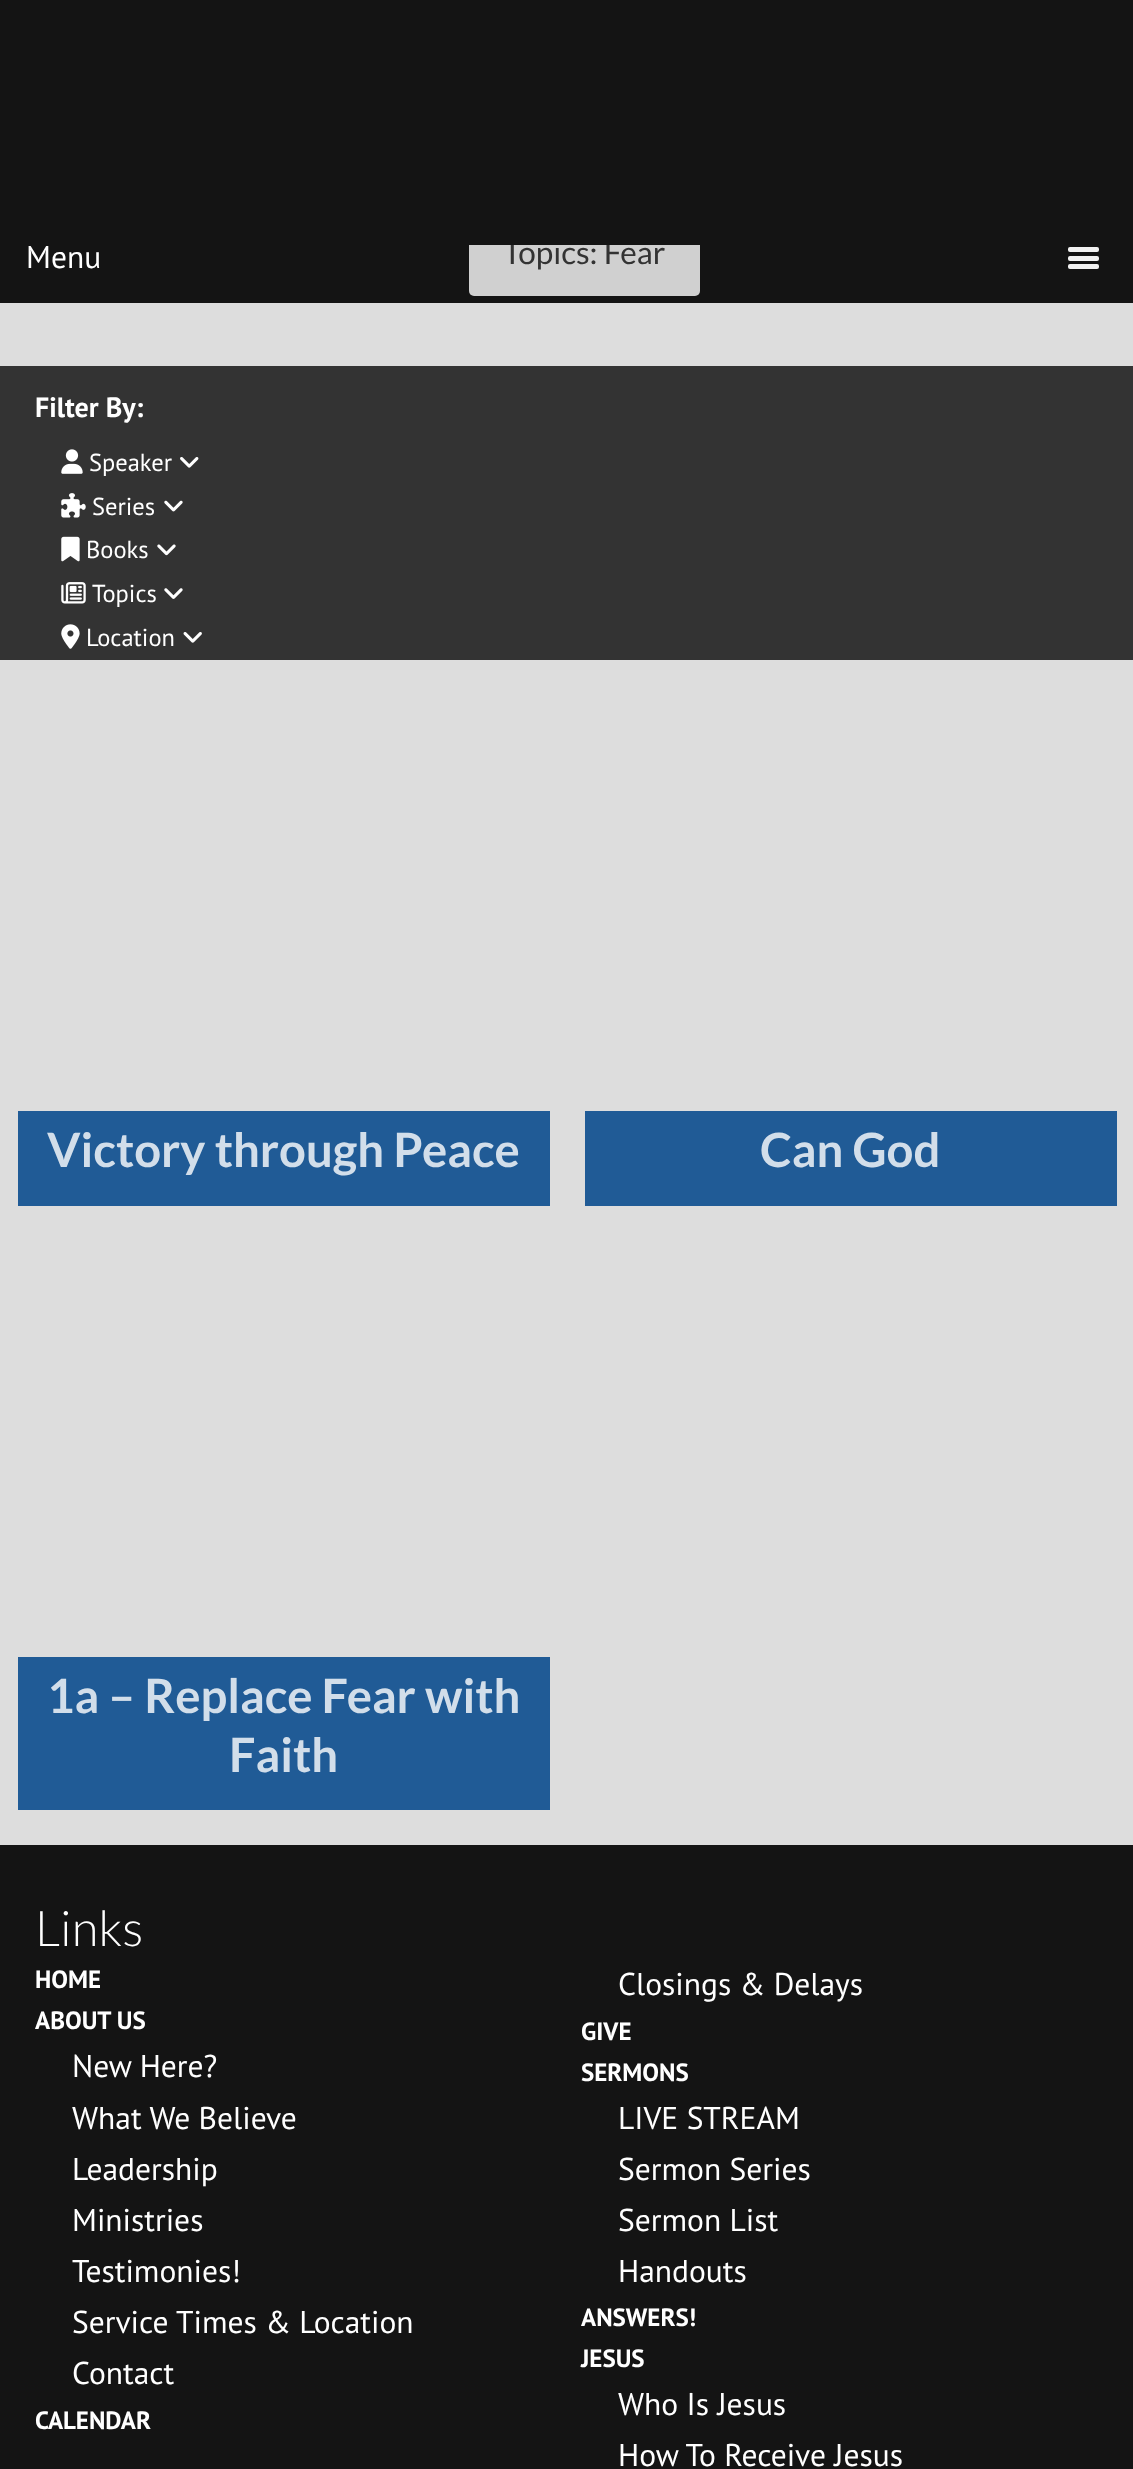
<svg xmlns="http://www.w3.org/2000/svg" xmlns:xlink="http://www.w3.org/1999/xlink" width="1133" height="2469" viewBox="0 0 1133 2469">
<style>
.cls-1{font:31.5px PT Sans;fill:#ffffff}
.cls-2{font:31.5px Lato;fill:#333333}
.cls-3{font:bold 28px PT Sans;fill:#ffffff}
.cls-4{font:24.5px PT Sans;fill:#ffffff}
.cls-5{font:bold 47.25px Lato;fill:#d2deea}
.cls-6{font:300 49px Lato;fill:#ffffff}
.cls-7{font:bold 25px PT Sans;fill:#ffffff}
</style>
<rect width="100%" height="100%" fill="#dddddd"/>
<rect fill="#141414" x="0" y="245" width="1133" height="58"/>
<rect fill="#f2f2f2" x="1068" y="247" width="31" height="5" rx="2"/>
<rect fill="#f2f2f2" x="1068" y="256" width="31" height="5" rx="2"/>
<rect fill="#f2f2f2" x="1068" y="264" width="31" height="5" rx="2"/>
<rect fill="#d0d0d0" x="469" y="210" width="231" height="86" rx="5"/>
<rect fill="#333333" x="0" y="366" width="1133" height="294"/>
<image xlink:href="image0.png" x="61" y="449" width="22" height="25"/>
<image xlink:href="image1.png" x="180" y="457" width="19" height="11"/>
<image xlink:href="image2.png" x="61" y="493" width="25" height="25"/>
<image xlink:href="image3.png" x="164" y="500" width="19" height="12"/>
<image xlink:href="image4.png" x="61" y="536" width="19" height="26"/>
<image xlink:href="image5.png" x="157" y="544" width="19" height="12"/>
<image xlink:href="image6.png" x="61" y="582" width="25" height="22"/>
<image xlink:href="image7.png" x="164" y="588" width="19" height="11"/>
<image xlink:href="image8.png" x="61" y="624" width="19" height="25"/>
<image xlink:href="image9.png" x="183" y="632" width="19" height="11"/>
<rect fill="#205b96" x="18" y="1111" width="532" height="95"/>
<rect fill="#205b96" x="585" y="1111" width="532" height="95"/>
<rect fill="#205b96" x="18" y="1657" width="532" height="153"/>
<rect fill="#141414" x="0" y="1845" width="1133" height="624"/>
<text class="cls-1" x="26" y="268">Menu</text>
<text class="cls-2" x="503" y="264">Topics: Fear</text>
<rect fill="#141414" x="0" y="0" width="1133" height="245"/>
<text class="cls-3" x="35" y="417">Filter By:</text>
<text class="cls-4" x="89" y="471">Speaker</text>
<text class="cls-4" x="92" y="515">Series</text>
<text class="cls-4" x="86" y="558">Books</text>
<text class="cls-4" x="92" y="602">Topics</text>
<text class="cls-4" x="86" y="646">Location</text>
<text class="cls-5" x="47" y="1167">Victory through Peace</text>
<text class="cls-5" x="760" y="1167">Can God</text>
<text class="cls-5" x="47" y="1713">1a – Replace Fear with</text>
<text class="cls-5" x="229" y="1772">Faith</text>
<text class="cls-6" x="35" y="1946">Links</text>
<text class="cls-7" x="35" y="1988">HOME</text>
<text class="cls-1" x="618" y="1995">Closings &amp; Delays</text>
<text class="cls-7" x="35" y="2429">CALENDAR</text>
<text class="cls-7" x="35" y="2029">ABOUT US</text>
<text class="cls-1"><tspan x="72" y="2077">New Here?</tspan><tspan x="72" y="2129">What We Believe</tspan><tspan x="72" y="2180">Leadership</tspan><tspan x="72" y="2231">Ministries</tspan><tspan x="72" y="2282">Testimonies!</tspan><tspan x="72" y="2333">Service Times &amp; Location</tspan><tspan x="72" y="2384">Contact</tspan></text>
<text class="cls-7"><tspan x="581" y="2040">GIVE</tspan><tspan x="581" y="2081">SERMONS</tspan></text>
<text class="cls-1"><tspan x="618" y="2129">LIVE STREAM</tspan><tspan x="618" y="2180">Sermon Series</tspan><tspan x="618" y="2231">Sermon List</tspan><tspan x="618" y="2282">Handouts</tspan></text>
<text class="cls-7"><tspan x="581" y="2326">ANSWERS!</tspan><tspan x="581" y="2367">JESUS</tspan></text>
<text class="cls-1"><tspan x="618" y="2415">Who Is Jesus</tspan><tspan x="618" y="2466">How To Receive Jesus</tspan></text>
</svg>
